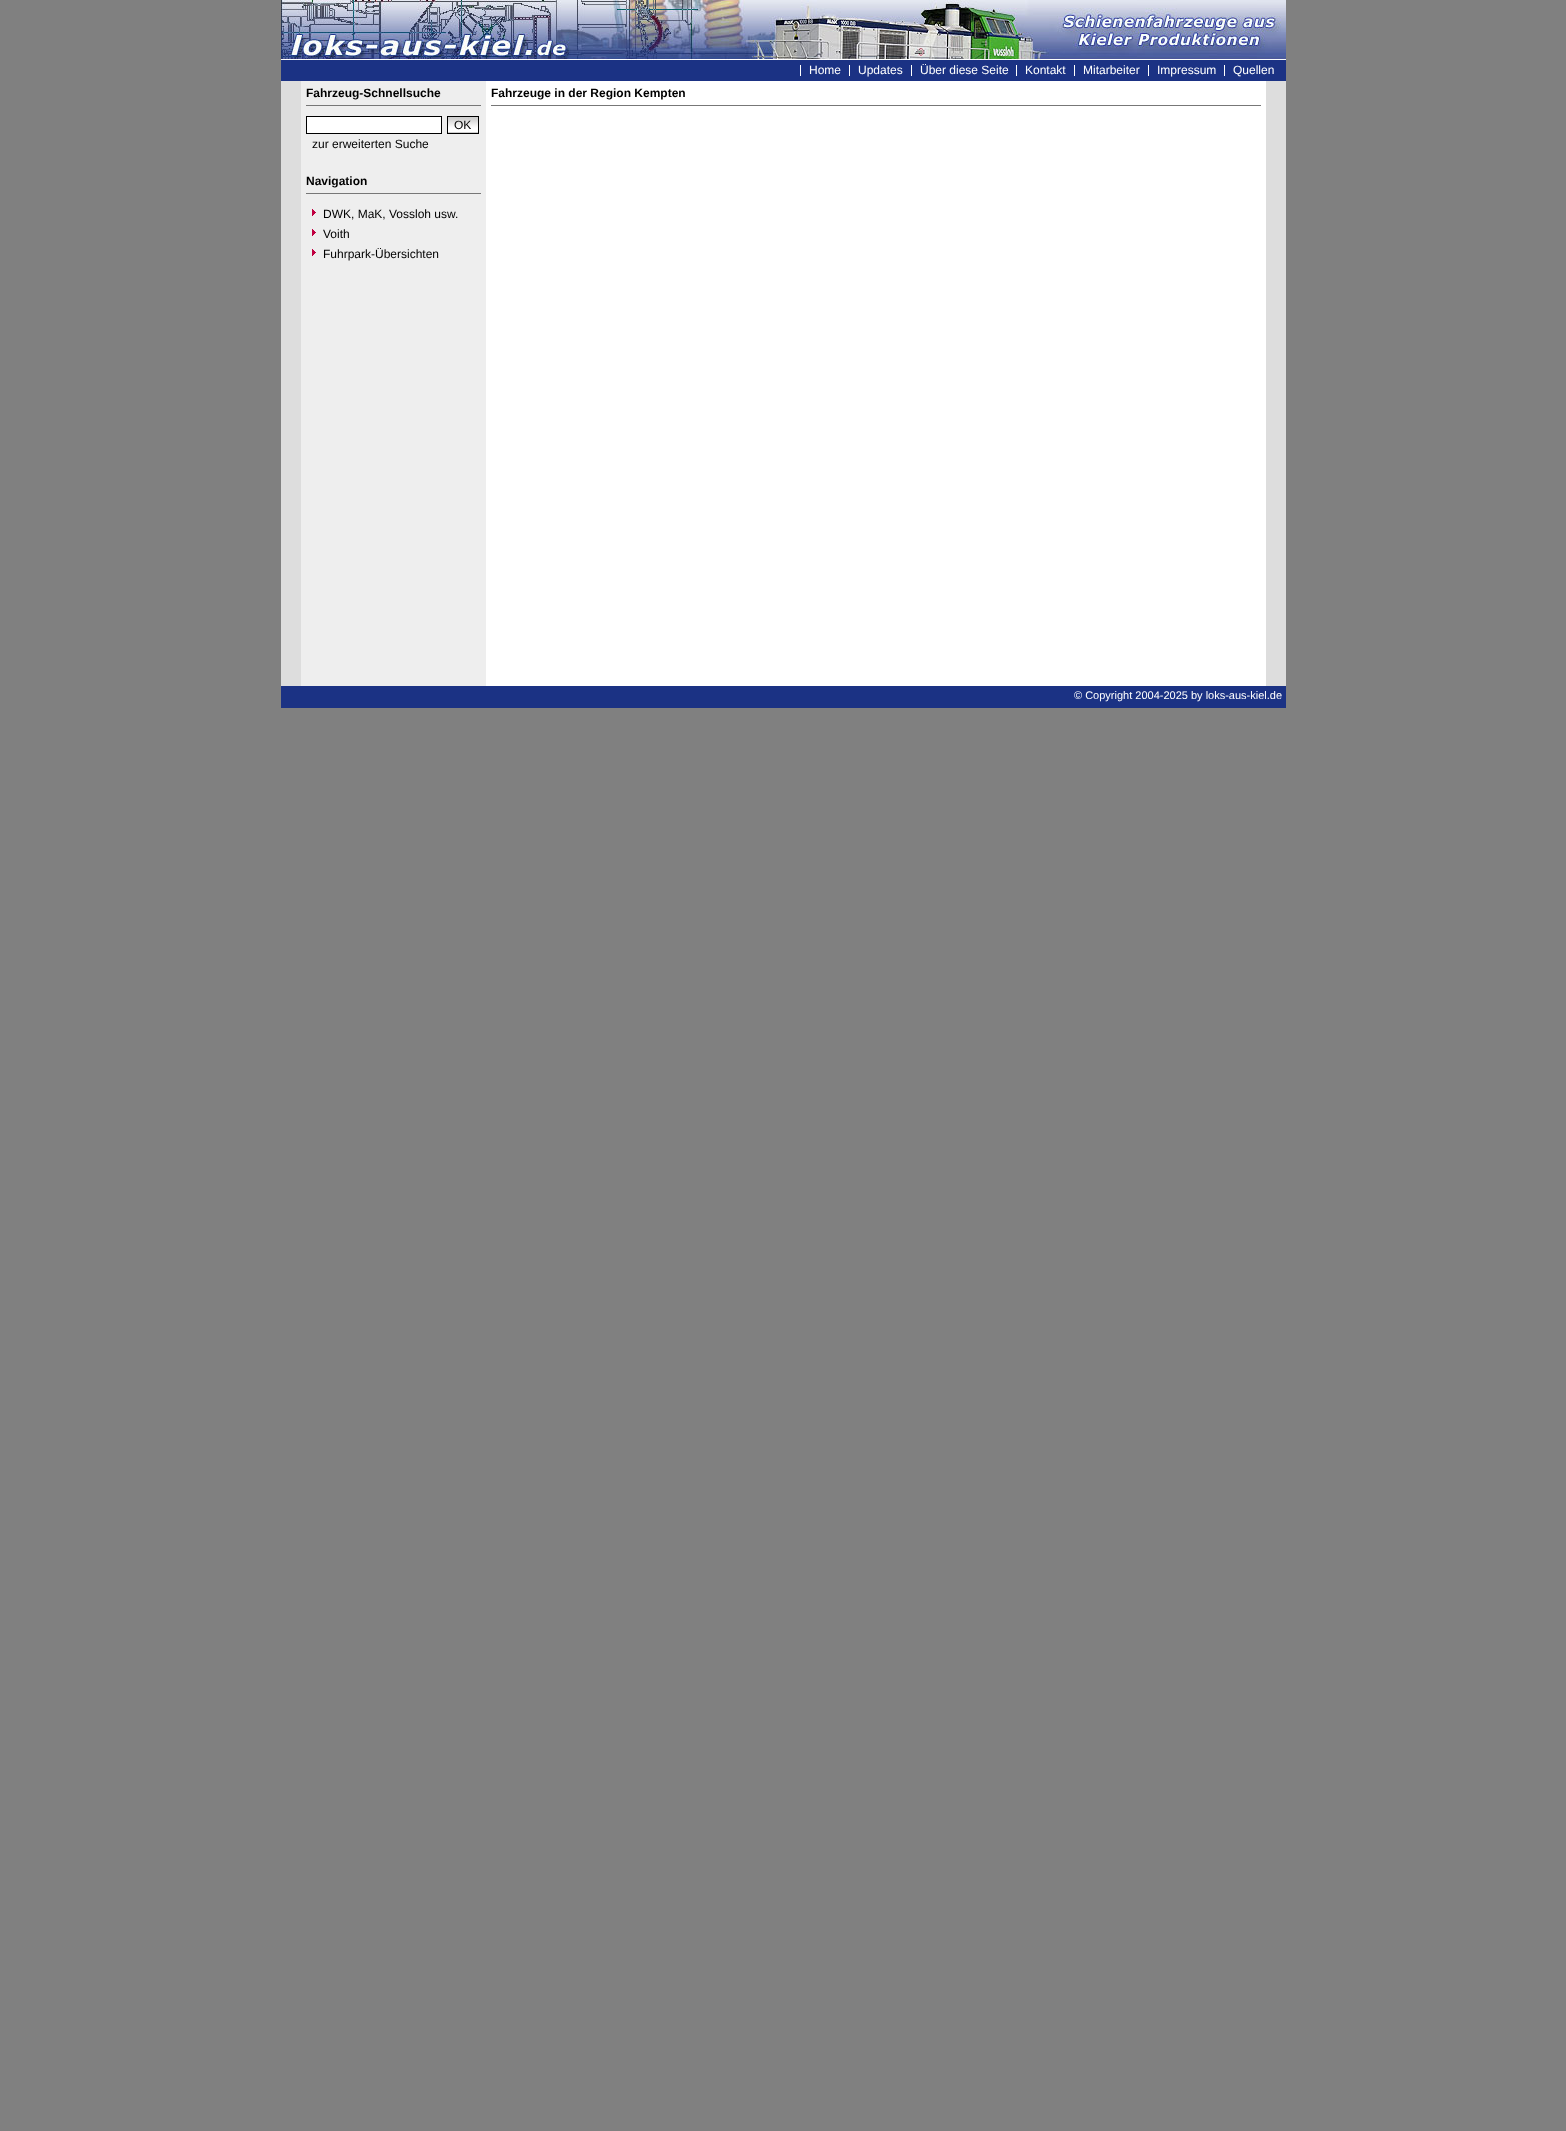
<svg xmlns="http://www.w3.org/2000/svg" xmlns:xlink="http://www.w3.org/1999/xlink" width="1566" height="2131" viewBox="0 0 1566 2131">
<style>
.cls-1{font:12px Liberation Sans;fill:#ffffff}
.cls-2{font:bold 12px Liberation Sans;fill:#000000}
.cls-3{font:12px Liberation Sans;fill:#000000}
.cls-4{font:11px Liberation Sans;fill:#ffffff}
</style>
<rect width="100%" height="100%" fill="#808080"/>
<image xlink:href="image0.png" x="281" y="81" width="1005" height="605"/>
<image xlink:href="image1.png" x="281" y="0" width="1005" height="60"/>
<rect fill="#1b3284" x="281" y="60" width="1005" height="21"/>
<rect fill="#ffffff" x="800" y="65" width="1" height="11"/>
<rect fill="#ffffff" x="849" y="65" width="1" height="11"/>
<rect fill="#ffffff" x="911" y="65" width="1" height="11"/>
<rect fill="#ffffff" x="1016" y="65" width="1" height="11"/>
<rect fill="#ffffff" x="1074" y="65" width="1" height="11"/>
<rect fill="#ffffff" x="1148" y="65" width="1" height="11"/>
<rect fill="#ffffff" x="1224" y="65" width="1" height="11"/>
<rect fill="#777777" x="306" y="105" width="175" height="1"/>
<rect fill="#ffffff" stroke="#000000" x="306.5" y="116.5" width="135" height="17"/>
<image xlink:href="image2.png" x="448" y="117" width="30" height="16"/>
<rect fill="none" stroke="#000000" x="447.5" y="116.5" width="31" height="17"/>
<rect fill="#777777" x="306" y="193" width="175" height="1"/>
<image xlink:href="image3.png" x="312" y="209" width="4" height="7"/>
<image xlink:href="image3.png" x="312" y="229" width="4" height="7"/>
<image xlink:href="image3.png" x="312" y="249" width="4" height="7"/>
<rect fill="#777777" x="491" y="105" width="770" height="1"/>
<rect fill="#1b3284" x="281" y="686" width="1005" height="22"/>
<text class="cls-1" x="809" y="74">Home</text>
<text class="cls-1" x="858" y="74">Updates</text>
<text class="cls-1" x="920" y="74">Über diese Seite</text>
<text class="cls-1" x="1025" y="74">Kontakt</text>
<text class="cls-1" x="1083" y="74">Mitarbeiter</text>
<text class="cls-1" x="1157" y="74">Impressum</text>
<text class="cls-1" x="1233" y="74">Quellen</text>
<text class="cls-2" x="306" y="97">Fahrzeug-Schnellsuche</text>
<text class="cls-3" x="454" y="129">OK</text>
<text class="cls-3" x="312" y="148">zur erweiterten Suche</text>
<text class="cls-2" x="306" y="185">Navigation</text>
<text class="cls-3"><tspan x="323" y="218">DWK, MaK, Vossloh usw.</tspan><tspan x="323" y="238">Voith</tspan><tspan x="323" y="258">Fuhrpark-Übersichten</tspan></text>
<text class="cls-2" x="491" y="97">Fahrzeuge in der Region Kempten</text>
<text class="cls-4" x="1074" y="699">© Copyright 2004-2025 by loks-aus-kiel.de</text>
</svg>
